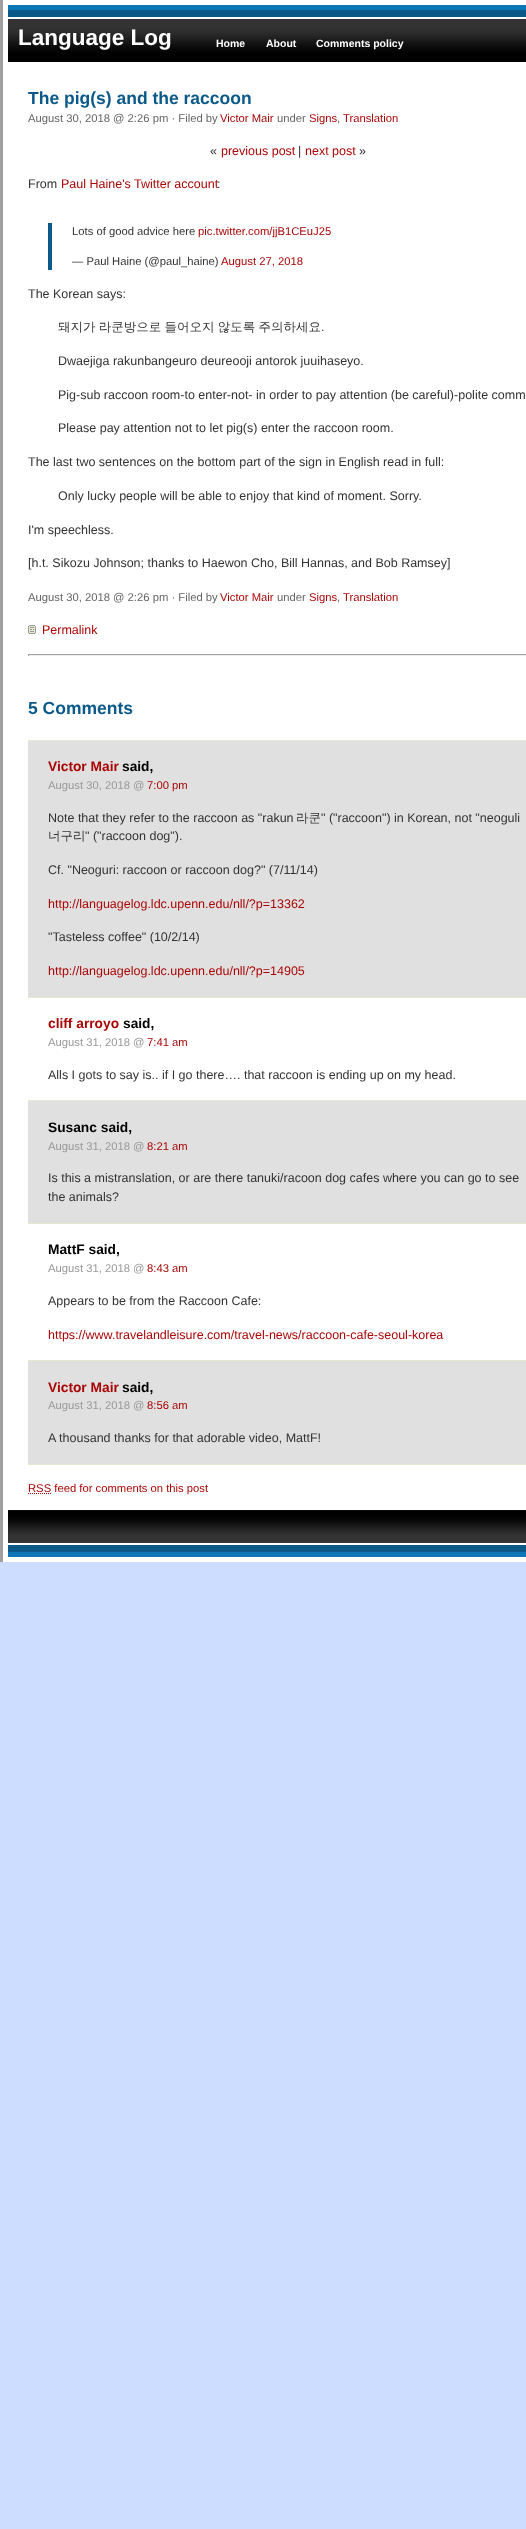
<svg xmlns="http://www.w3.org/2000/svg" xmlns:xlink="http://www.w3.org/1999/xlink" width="526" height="2529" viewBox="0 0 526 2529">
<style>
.cls-1{font:bold 22.5px Liberation Sans;fill:#ffffff}
.cls-2{font:bold 10.5px Liberation Sans;fill:#ffffff}
.cls-3{font:bold 17.5px Liberation Sans;fill:#0a5989}
.cls-4{font:11.25px Liberation Sans;fill:#666666}
.cls-5{font:11.25px Liberation Sans;fill:#aa0505}
.cls-6{font:12.5px Liberation Sans;fill:#333333}
.cls-7{font:12.5px Liberation Sans;fill:#aa0505}
.cls-8{font:11.25px Liberation Sans;fill:#333333}
.cls-9{font:500 12.5px WenQuanYi Zen Hei;fill:#333333}
.cls-10{font:bold 13.75px Liberation Sans;fill:#aa0505}
.cls-11{font:bold 13.75px Liberation Sans;fill:#000000}
.cls-12{font:11.25px Liberation Sans;fill:#999999}
</style>
<rect width="100%" height="100%" fill="#ccddff"/>
<rect fill="#ffffff" x="3" y="0" width="523" height="1562"/>
<rect fill="#9f9f9f" x="0" y="0" width="3" height="1562"/>
<image xlink:href="image0.png" x="8" y="5" width="518" height="57"/>
<rect fill="#0a5989" x="48" y="223" width="4" height="47"/>
<image xlink:href="image1.png" x="28" y="625" width="8" height="9"/>
<rect fill="#9f9f9f" x="28" y="654" width="498" height="1"/>
<rect fill="#eeeeee" x="28" y="655" width="498" height="1"/>
<rect fill="#9f9f9f" x="28" y="654" width="1" height="2"/>
<rect fill="#e8e7d0" x="28" y="1464" width="498" height="1"/>
<rect fill="#e0e0e0" x="28" y="741" width="498" height="256"/>
<rect fill="#e8e7d0" x="28" y="740" width="498" height="1"/>
<rect fill="#e8e7d0" x="28" y="997" width="498" height="1"/>
<rect fill="#e0e0e0" x="28" y="1101" width="498" height="122"/>
<rect fill="#e8e7d0" x="28" y="1100" width="498" height="1"/>
<rect fill="#e8e7d0" x="28" y="1223" width="498" height="1"/>
<rect fill="#e0e0e0" x="28" y="1361" width="498" height="103"/>
<rect fill="#e8e7d0" x="28" y="1360" width="498" height="1"/>
<path fill="none" stroke="#aa0505" stroke-dasharray="1 1" d="M28 1493.5H51"/>
<image xlink:href="image2.png" x="8" y="1510" width="518" height="47"/>
<text class="cls-1" x="18" y="45">Language Log</text>
<text class="cls-2" x="216" y="47">Home</text>
<text class="cls-2" x="266" y="47">About</text>
<text class="cls-2" x="316" y="47">Comments policy</text>
<text class="cls-3" x="28" y="104">The pig(s) and the raccoon</text>
<text class="cls-4" x="28" y="122">August 30, 2018 @ 2:26 pm · Filed by</text>
<text class="cls-5" x="220" y="122">Victor Mair</text>
<text class="cls-4" x="277" y="122">under</text>
<text class="cls-5" x="309" y="122">Signs</text>
<text class="cls-4" x="337" y="122">,</text>
<text class="cls-5" x="343" y="122">Translation</text>
<text class="cls-6" x="210" y="155">«</text>
<text class="cls-7" x="221" y="155">previous post</text>
<text class="cls-6" x="298" y="155">|</text>
<text class="cls-7" x="305" y="155">next post</text>
<text class="cls-6" x="359" y="155">»</text>
<text class="cls-6" x="28" y="188">From</text>
<text class="cls-7" x="61" y="188">Paul Haine's Twitter account</text>
<text class="cls-6" x="217" y="188">:</text>
<text class="cls-8" x="72" y="235">Lots of good advice here</text>
<text class="cls-5" x="198" y="235">pic.twitter.com/jjB1CEuJ25</text>
<text class="cls-8" x="72" y="265">— Paul Haine (@paul_haine)</text>
<text class="cls-5" x="221" y="265">August 27, 2018</text>
<text class="cls-6" x="28" y="298">The Korean says:</text>
<text class="cls-9" x="58" y="331" word-spacing="-0.5">돼지가 라쿤방으로 들어오지 않도록 주의하세요</text>
<text class="cls-6" x="321" y="331">.</text>
<text class="cls-6" x="58" y="365">Dwaejiga rakunbangeuro deureooji antorok juuihaseyo.</text>
<text class="cls-6" x="58" y="399">Pig-sub raccoon room-to enter-not- in order to pay attention (be careful)-polite comm</text>
<text class="cls-6" x="58" y="432">Please pay attention not to let pig(s) enter the raccoon room.</text>
<text class="cls-6" x="28" y="466">The last two sentences on the bottom part of the sign in English read in full:</text>
<text class="cls-6" x="58" y="500">Only lucky people will be able to enjoy that kind of moment. Sorry.</text>
<text class="cls-6" x="28" y="534">I'm speechless.</text>
<text class="cls-6" x="28" y="567">[h.t. Sikozu Johnson; thanks to Haewon Cho, Bill Hannas, and Bob Ramsey]</text>
<text class="cls-4" x="28" y="601">August 30, 2018 @ 2:26 pm · Filed by</text>
<text class="cls-5" x="220" y="601">Victor Mair</text>
<text class="cls-4" x="277" y="601">under</text>
<text class="cls-5" x="309" y="601">Signs</text>
<text class="cls-4" x="337" y="601">,</text>
<text class="cls-5" x="343" y="601">Translation</text>
<text class="cls-7" x="42" y="634">Permalink</text>
<text class="cls-3" x="28" y="714">5 Comments</text>
<text class="cls-10" x="48" y="771">Victor Mair</text>
<text class="cls-11" x="122" y="771">said,</text>
<text class="cls-12" x="48" y="789">August 30, 2018 @</text>
<text class="cls-5" x="147" y="789">7:00 pm</text>
<text class="cls-6" x="48" y="822">Note that they refer to the raccoon as "rakun</text>
<text class="cls-9" x="296" y="822">라쿤</text>
<text class="cls-6" x="321" y="822">" ("raccoon") in Korean, not "neoguli</text>
<text class="cls-9" x="48" y="840">너구리</text>
<text class="cls-6" x="85" y="840">" ("raccoon dog").</text>
<text class="cls-6" x="48" y="874">Cf. "Neoguri: raccoon or raccoon dog?" (7/11/14)</text>
<text class="cls-7" x="48" y="908">http://languagelog.ldc.upenn.edu/nll/?p=13362</text>
<text class="cls-6" x="48" y="941">"Tasteless coffee" (10/2/14)</text>
<text class="cls-7" x="48" y="975">http://languagelog.ldc.upenn.edu/nll/?p=14905</text>
<text class="cls-10" x="48" y="1028">cliff arroyo</text>
<text class="cls-11" x="123" y="1028">said,</text>
<text class="cls-12" x="48" y="1046">August 31, 2018 @</text>
<text class="cls-5" x="147" y="1046">7:41 am</text>
<text class="cls-6" x="48" y="1079">Alls I gots to say is.. if I go there…. that raccoon is ending up on my head.</text>
<text class="cls-11" x="48" y="1132">Susanc said,</text>
<text class="cls-12" x="48" y="1150">August 31, 2018 @</text>
<text class="cls-5" x="147" y="1150">8:21 am</text>
<text class="cls-6"><tspan x="48" y="1182">Is this a mistranslation, or are there tanuki/racoon dog cafes where you can go to see</tspan><tspan x="48" y="1201">the animals?</tspan></text>
<text class="cls-11" x="48" y="1254">MattF said,</text>
<text class="cls-12" x="48" y="1272">August 31, 2018 @</text>
<text class="cls-5" x="147" y="1272">8:43 am</text>
<text class="cls-6" x="48" y="1305">Appears to be from the Raccoon Cafe:</text>
<text class="cls-7" x="48" y="1339">https://www.travelandleisure.com/travel-news/raccoon-cafe-seoul-korea</text>
<text class="cls-10" x="48" y="1392">Victor Mair</text>
<text class="cls-11" x="122" y="1392">said,</text>
<text class="cls-12" x="48" y="1409">August 31, 2018 @</text>
<text class="cls-5" x="147" y="1409">8:56 am</text>
<text class="cls-6" x="48" y="1442">A thousand thanks for that adorable video, MattF!</text>
<text class="cls-5" x="28" y="1492">RSS feed for comments on this post</text>
</svg>
